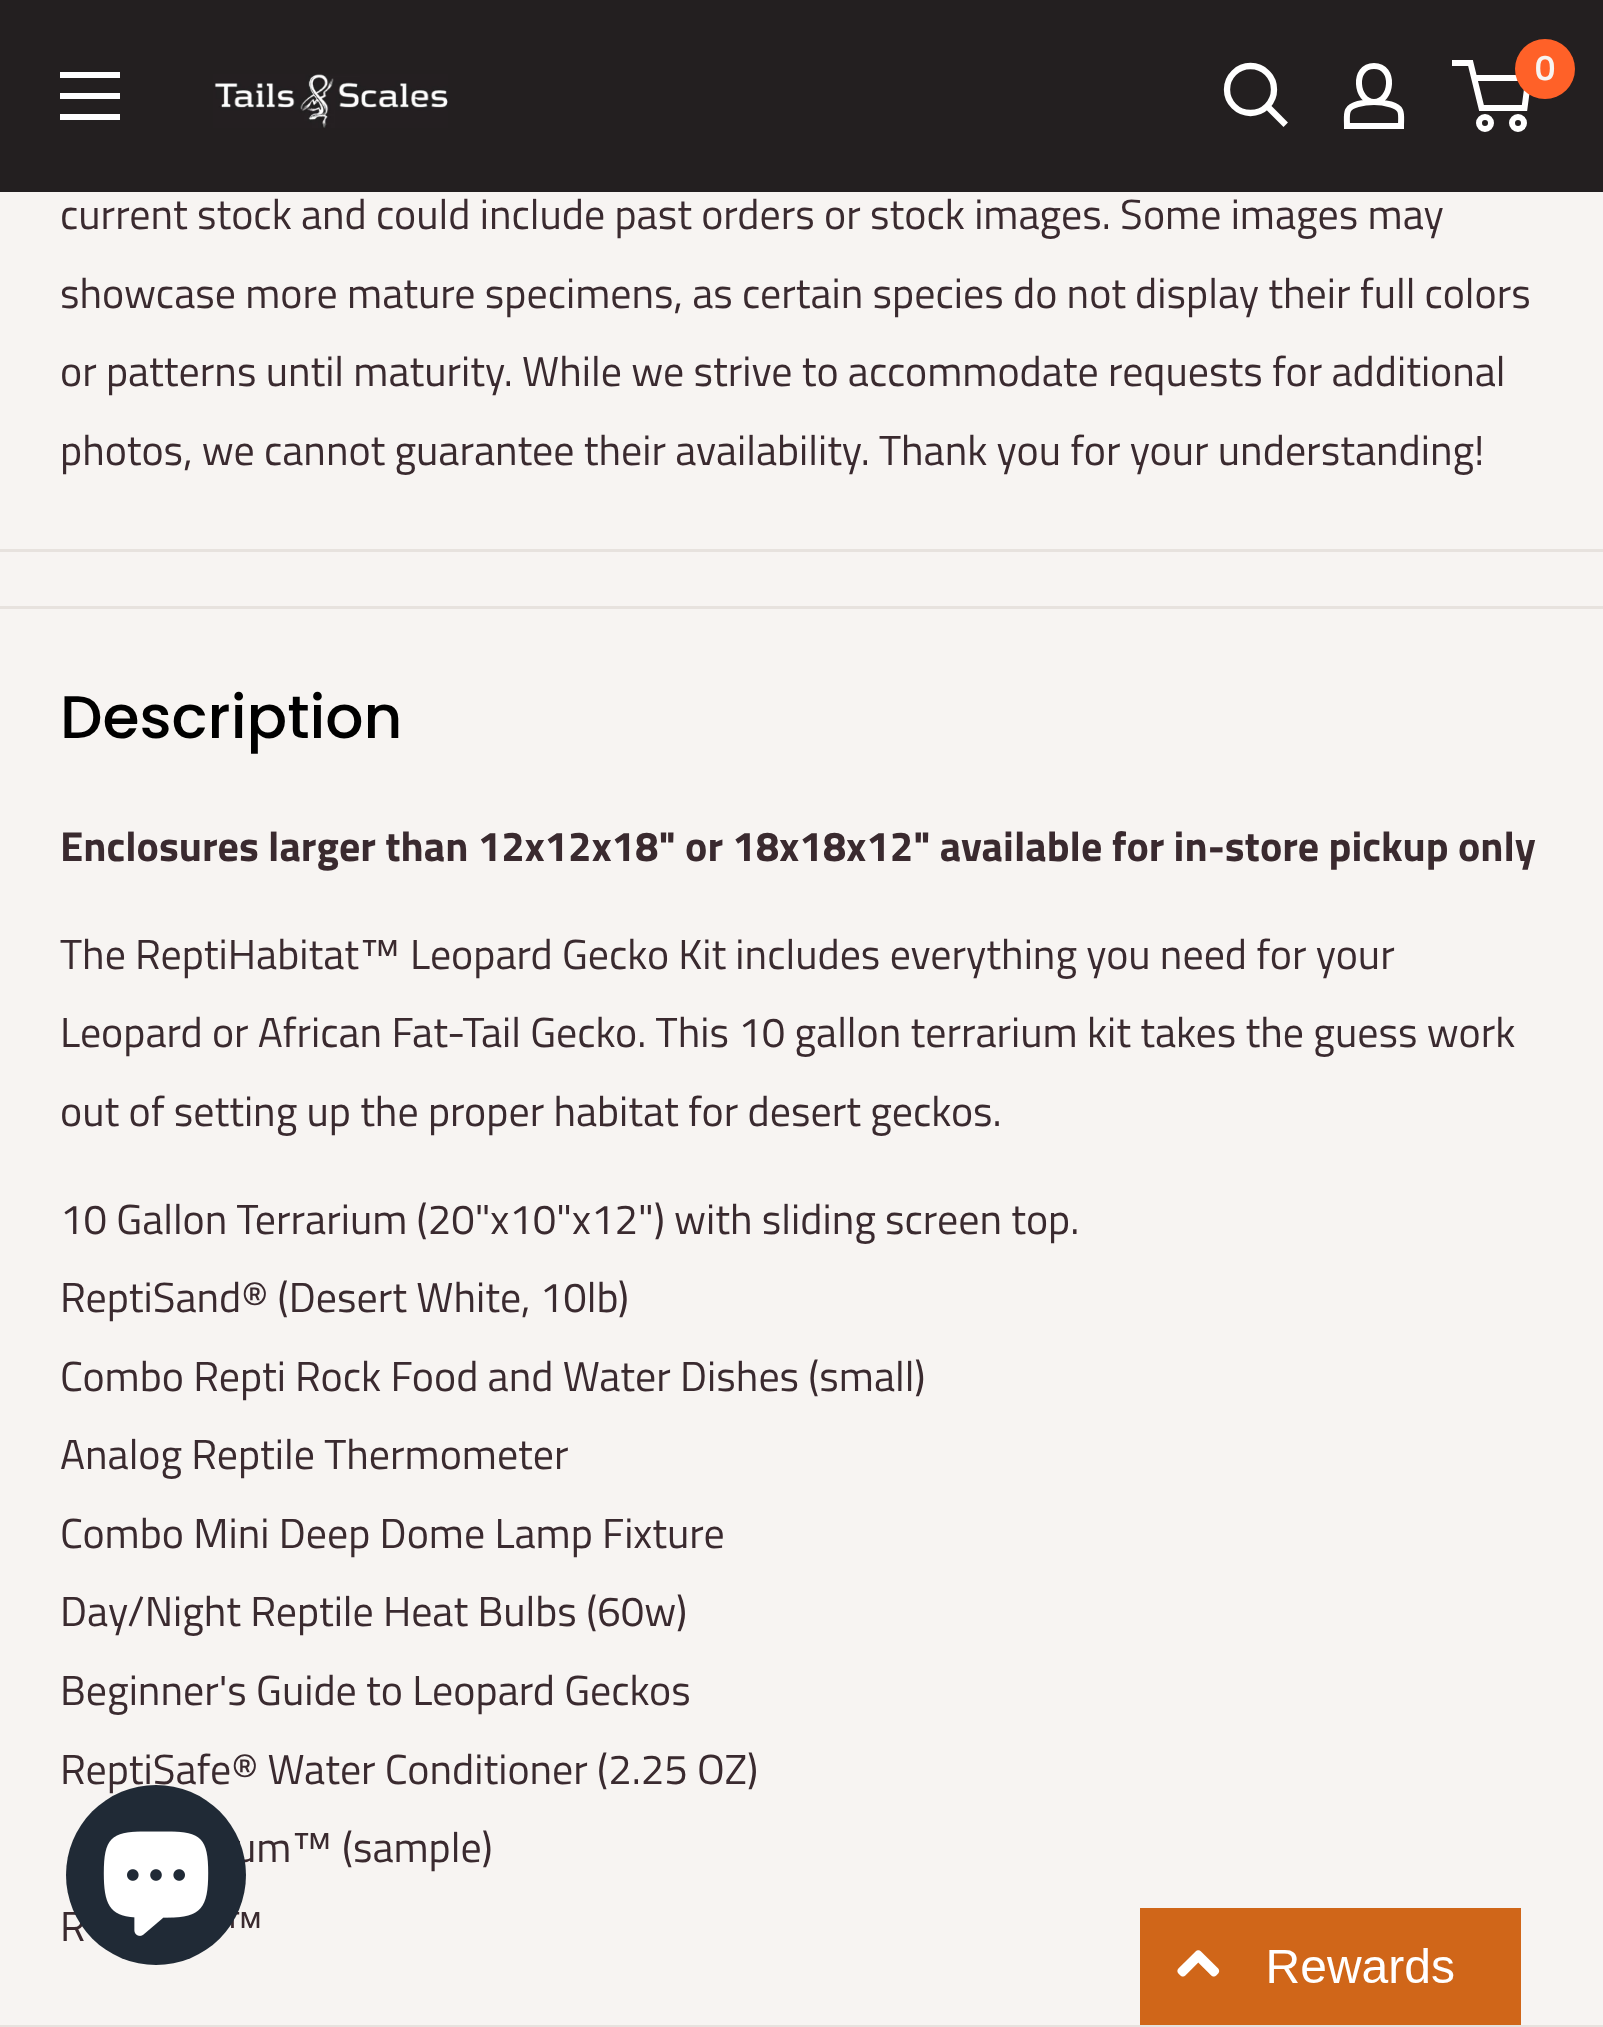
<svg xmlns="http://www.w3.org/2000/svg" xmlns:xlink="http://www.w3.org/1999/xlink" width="1603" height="2027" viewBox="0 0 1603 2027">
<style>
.cls-1{font:600 36px Titillium Web;fill:#f7f4f2}
.cls-2{font:42px Titillium Web;fill:#3a2a2f}
.cls-3{font:500 60px Poppins;fill:#000000}
.cls-4{font:bold 42px Titillium Web;fill:#3a2a2f}
.cls-5{font:42px Liberation Sans;fill:#3a2a2f}
</style>
<rect width="100%" height="100%" fill="#f7f4f2"/>
<rect fill="#231f20" x="0" y="0" width="1603" height="192"/>
<path fill="none" stroke="#ffffff" stroke-width="6.3" stroke-linecap="square" d="M1283.5 122.5L1268 107"/>
<circle fill="none" stroke="#ffffff" stroke-width="6.3" cx="1250.5" cy="89.5" r="23.5"/>
<path fill="none" stroke="#ffffff" stroke-width="6" d="M1374 102C1379.5 102 1385.5 103 1391 104.5C1403.5 108 1401 114.5 1401 126H1347C1347 114 1344.5 107.5 1358 104C1363.5 102.5 1368.5 102 1374 102ZM1374 102C1356 102 1352 66 1374 66C1396 66 1392 102 1374 102Z"/>
<circle fill="none" stroke="#ffffff" stroke-width="6" cx="1485" cy="123" r="6"/>
<circle fill="none" stroke="#ffffff" stroke-width="6" cx="1518" cy="123" r="6"/>
<path fill="none" stroke="#ffffff" stroke-width="6" d="M1474 78H1528.5L1524.5 108H1481.5L1470.5 63H1452"/>
<circle fill="#ff6128" cx="1545" cy="69" r="30"/>
<path fill="#ffffff" fill-rule="evenodd" d="M60 114H120V120H60ZM60 72H120V78H60ZM60 93H120V99H60Z"/>
<image xlink:href="image0.png" x="213" y="74" width="235" height="54"/>
<rect fill="#e7e2de" x="0" y="549" width="1603" height="3"/>
<rect fill="#e7e2de" x="0" y="606" width="1603" height="3"/>
<rect fill="#e7e2de" x="0" y="2025" width="1603" height="2"/>
<image xlink:href="image2.png" x="1140" y="1908" width="381" height="117"/>
<text class="cls-1" x="1535" y="80">0</text>
<text class="cls-2"><tspan x="60" y="229">current stock and could include past orders or stock images. Some images may</tspan><tspan x="60" y="308">showcase more mature specimens, as certain species do not display their full colors</tspan><tspan x="60" y="386">or patterns until maturity. While we strive to accommodate requests for additional</tspan><tspan x="60" y="465">photos, we cannot guarantee their availability. Thank you for your understanding!</tspan></text>
<text class="cls-3" x="60" y="738">Description</text>
<text class="cls-4" x="60" y="861">Enclosures larger than 12x12x18" or 18x18x12" available for in-store pickup only</text>
<text class="cls-2" x="60" y="969">The ReptiHabitat</text>
<text class="cls-5" x="359" y="969">™</text>
<text class="cls-2" x="410" y="969">Leopard Gecko Kit includes everything you need for your</text>
<text class="cls-2"><tspan x="60" y="1047">Leopard or African Fat-Tail Gecko. This 10 gallon terrarium kit takes the guess work</tspan><tspan x="60" y="1126">out of setting up the proper habitat for desert geckos.</tspan></text>
<text class="cls-2"><tspan x="60" y="1234">10 Gallon Terrarium (20"x10"x12") with sliding screen top.</tspan><tspan x="60" y="1312">ReptiSand® (Desert White, 10lb)</tspan><tspan x="60" y="1391">Combo Repti Rock Food and Water Dishes (small)</tspan><tspan x="60" y="1469">Analog Reptile Thermometer</tspan><tspan x="60" y="1548">Combo Mini Deep Dome Lamp Fixture</tspan><tspan x="60" y="1626">Day/Night Reptile Heat Bulbs (60w)</tspan><tspan x="60" y="1705">Beginner's Guide to Leopard Geckos</tspan><tspan x="60" y="1784">ReptiSafe® Water Conditioner (2.25 OZ)</tspan></text>
<text class="cls-2" x="234" y="1862">um</text>
<text class="cls-5" x="291" y="1862">™</text>
<text class="cls-2" x="342" y="1862">(sample)</text>
<text class="cls-2" x="60" y="1941">R</text>
<text class="cls-5" x="222" y="1941">™</text>
<circle fill="#202a36" cx="156" cy="1875" r="90"/>
<image xlink:href="image1.png" x="103" y="1831" width="106" height="105"/>
</svg>
